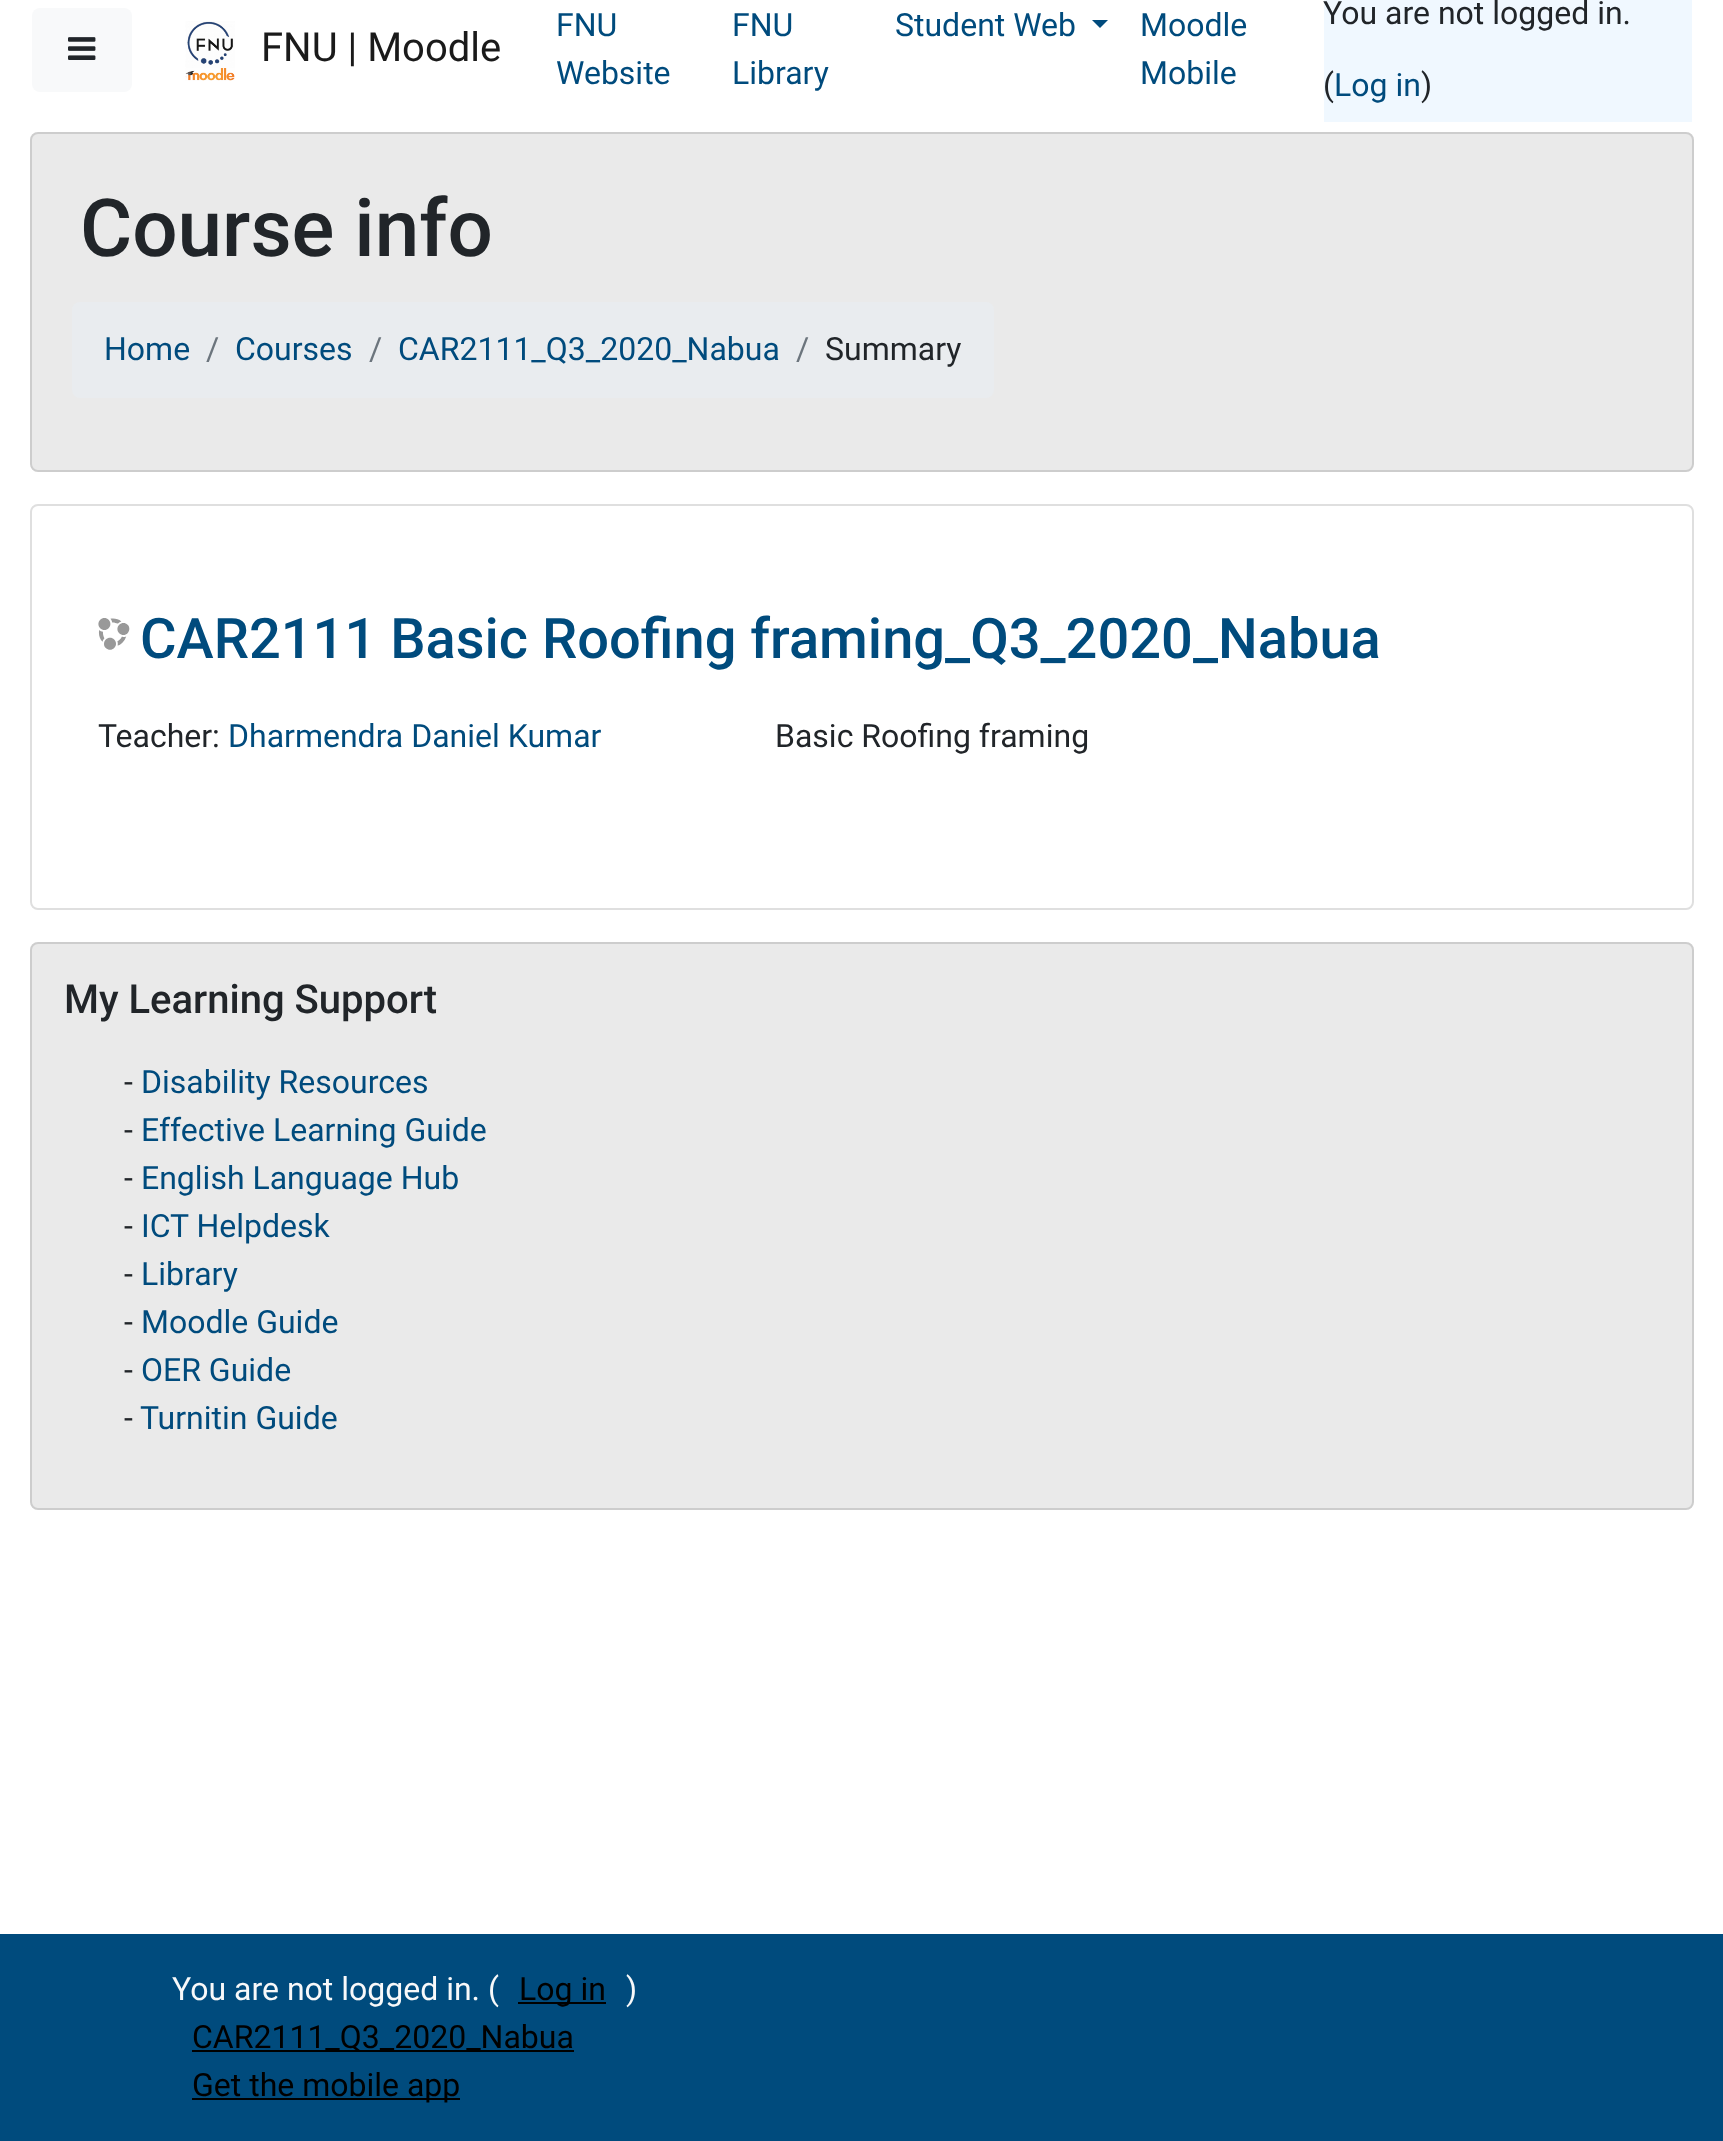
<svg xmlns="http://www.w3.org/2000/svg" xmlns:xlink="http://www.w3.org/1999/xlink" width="1723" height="2141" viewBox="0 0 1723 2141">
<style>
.cls-1{font:40px Roboto;fill:#1a1a1a}
.cls-2{font:32px Roboto;fill:#004b7d}
.cls-3{font:32px Roboto;fill:#212529}
.cls-4{font:500 80px Roboto;fill:#212529}
.cls-5{font:32px Roboto;fill:#6c757d}
.cls-6{font:500 56px Roboto;fill:#004b7d}
.cls-7{font:500 40px Roboto;fill:#212529}
.cls-8{font:32px Roboto;fill:#f8f9fa}
.cls-9{font:32px Roboto;fill:#000000}
</style>
<rect width="100%" height="100%" fill="#ffffff"/>
<rect fill="#f8f9fa" x="32" y="8" width="100" height="84" rx="8"/>
<image xlink:href="image0.png" x="68" y="37" width="28" height="23"/>
<image xlink:href="image1.png" x="185" y="21" width="50" height="60"/>
<path fill="#004b7d" d="M1092 20H1108L1100 28Z"/>
<rect fill="#f0f8ff" x="1324" y="0" width="368" height="122"/>
<rect fill="#eaeaea" x="30" y="132" width="1664" height="340" rx="8"/>
<rect fill="none" stroke="#000000" stroke-opacity="0.12" stroke-width="2" x="31" y="133" width="1662" height="338" rx="7"/>
<rect fill="#e9ecef" x="72" y="302" width="922" height="96" rx="8"/>
<rect fill="none" stroke="#dfdfdf" stroke-width="2" x="31" y="505" width="1662" height="404" rx="7"/>
<image xlink:href="image2.png" x="98" y="618" width="32" height="32"/>
<rect fill="#eaeaea" x="30" y="942" width="1664" height="568" rx="8"/>
<rect fill="none" stroke="#000000" stroke-opacity="0.12" stroke-width="2" x="31" y="943" width="1662" height="566" rx="7"/>
<rect fill="#004b7d" x="0" y="1934" width="1723" height="207"/>
<rect fill="#000000" x="518" y="2002" width="88" height="2"/>
<rect fill="#000000" x="192" y="2050" width="382" height="2"/>
<rect fill="#000000" x="192" y="2098" width="268" height="2"/>
<text class="cls-1" x="261" y="61">FNU | Moodle</text>
<text class="cls-2"><tspan x="556" y="36">FNU</tspan><tspan x="556" y="84">Website</tspan></text>
<text class="cls-2"><tspan x="732" y="36">FNU</tspan><tspan x="732" y="84">Library</tspan></text>
<text class="cls-2" x="895" y="36">Student Web</text>
<text class="cls-2"><tspan x="1140" y="36">Moodle</tspan><tspan x="1140" y="84">Mobile</tspan></text>
<text class="cls-3" x="1323" y="24">You are not logged in.</text>
<text class="cls-3" x="1323" y="96">(</text>
<text class="cls-2" x="1334" y="96">Log in</text>
<text class="cls-3" x="1421" y="96">)</text>
<text class="cls-4" x="80" y="256">Course info</text>
<text class="cls-2" x="104" y="360">Home</text>
<text class="cls-5" x="206" y="360">/</text>
<text class="cls-2" x="235" y="360">Courses</text>
<text class="cls-5" x="369" y="360">/</text>
<text class="cls-2" x="398" y="360">CAR2111_Q3_2020_Nabua</text>
<text class="cls-5" x="796" y="360">/</text>
<text class="cls-3" x="825" y="360">Summary</text>
<text class="cls-6" x="140" y="658">CAR2111 Basic Roofing framing_Q3_2020_Nabua</text>
<text class="cls-3" x="98" y="747">Teacher:</text>
<text class="cls-2" x="228" y="747">Dharmendra Daniel Kumar</text>
<text class="cls-3" x="775" y="747">Basic Roofing framing</text>
<text class="cls-7" x="64" y="1013">My Learning Support</text>
<text class="cls-3" x="124" y="1093">-</text>
<text class="cls-2" x="141" y="1093">Disability Resources</text>
<text class="cls-3" x="124" y="1141">-</text>
<text class="cls-2" x="141" y="1141">Effective Learning Guide</text>
<text class="cls-3" x="124" y="1189">-</text>
<text class="cls-2" x="141" y="1189">English Language Hub</text>
<text class="cls-3" x="124" y="1237">-</text>
<text class="cls-2" x="141" y="1237">ICT Helpdesk</text>
<text class="cls-3" x="124" y="1285">-</text>
<text class="cls-2" x="141" y="1285">Library</text>
<text class="cls-3" x="124" y="1333">-</text>
<text class="cls-2" x="141" y="1333">Moodle Guide</text>
<text class="cls-3" x="124" y="1381">-</text>
<text class="cls-2" x="141" y="1381">OER Guide</text>
<text class="cls-3" x="124" y="1429">-</text>
<text class="cls-2" x="140" y="1429">Turnitin Guide</text>
<text class="cls-8" x="172" y="2000">You are not logged in. (</text>
<text class="cls-9" x="519" y="2000">Log in</text>
<text class="cls-8" x="626" y="2000">)</text>
<text class="cls-9"><tspan x="192" y="2048">CAR2111_Q3_2020_Nabua</tspan><tspan x="192" y="2096">Get the mobile app</tspan></text>
</svg>
